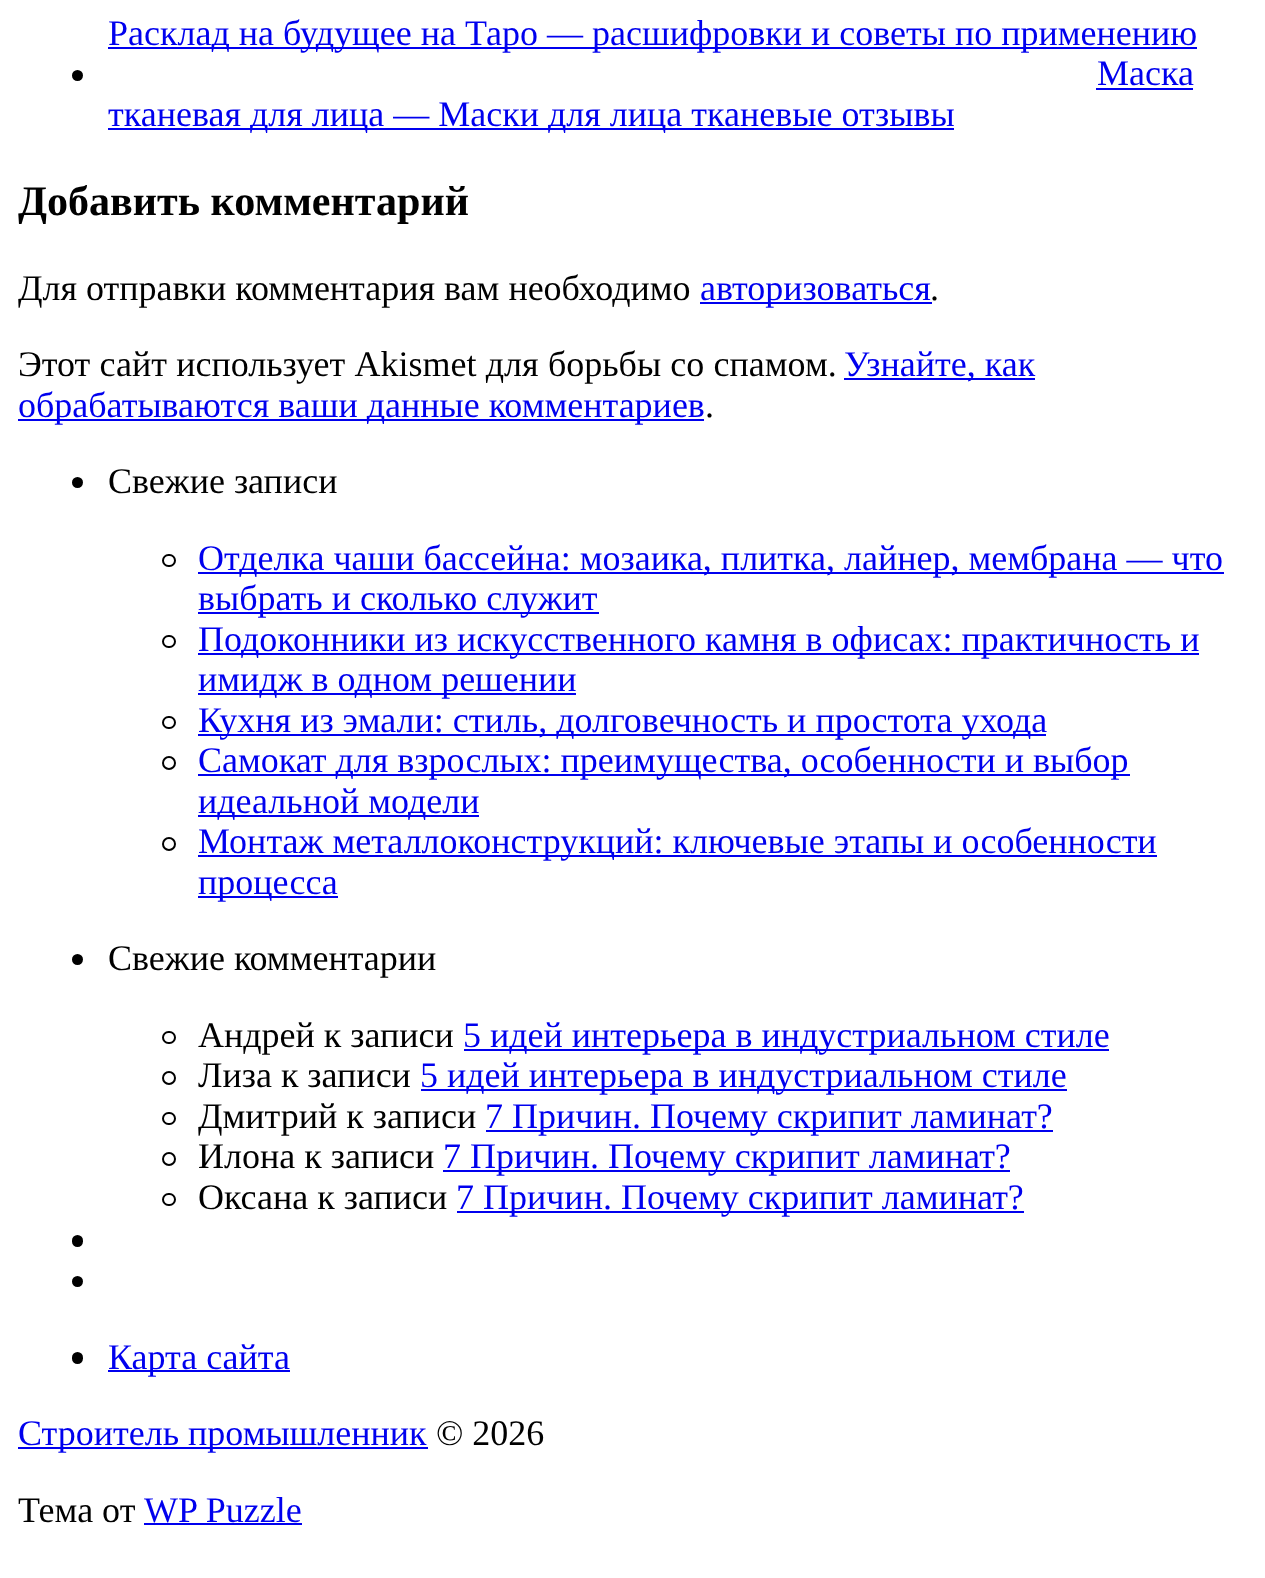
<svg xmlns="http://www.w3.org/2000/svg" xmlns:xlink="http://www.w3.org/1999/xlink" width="1265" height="1578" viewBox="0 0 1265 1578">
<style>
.cls-1{font:36px Liberation Serif;fill:#0000ee}
.cls-2{font:bold 42.1px Liberation Serif;fill:#000000}
.cls-3{font:36px Liberation Serif;fill:#000000}
</style>
<rect width="100%" height="100%" fill="#ffffff"/>
<rect fill="#0000ee" x="108" y="47" width="1089" height="2"/>
<circle fill="#000000" cx="77.5" cy="75.5" r="5.5"/>
<rect fill="#0000ee" x="1096" y="88" width="97" height="2"/>
<rect fill="#0000ee" x="108" y="128" width="846" height="2"/>
<rect fill="#0000ee" x="700" y="302" width="232" height="2"/>
<rect fill="#0000ee" x="844" y="378" width="191" height="2"/>
<rect fill="#0000ee" x="18" y="419" width="686" height="2"/>
<circle fill="#000000" cx="77.5" cy="482.5" r="5.5"/>
<rect fill="none" stroke="#000000" stroke-width="2" x="163" y="555" width="12" height="11" rx="5.5"/>
<rect fill="#0000ee" x="198" y="572" width="1026" height="2"/>
<rect fill="#0000ee" x="198" y="612" width="401" height="2"/>
<rect fill="none" stroke="#000000" stroke-width="2" x="163" y="636" width="12" height="11" rx="5.5"/>
<rect fill="#0000ee" x="198" y="653" width="1001" height="2"/>
<rect fill="#0000ee" x="198" y="693" width="378" height="2"/>
<rect fill="none" stroke="#000000" stroke-width="2" x="163" y="717" width="12" height="11" rx="5.5"/>
<rect fill="#0000ee" x="198" y="734" width="848" height="2"/>
<circle fill="none" stroke="#000000" stroke-width="2" cx="169" cy="763" r="6"/>
<rect fill="#0000ee" x="198" y="774" width="932" height="2"/>
<rect fill="#0000ee" x="198" y="815" width="281" height="2"/>
<circle fill="none" stroke="#000000" stroke-width="2" cx="169" cy="844" r="6"/>
<rect fill="#0000ee" x="198" y="855" width="959" height="2"/>
<rect fill="#0000ee" x="198" y="896" width="140" height="2"/>
<circle fill="#000000" cx="77.5" cy="959.5" r="5.5"/>
<rect fill="none" stroke="#000000" stroke-width="2" x="163" y="1032" width="12" height="11" rx="5.5"/>
<rect fill="#0000ee" x="464" y="1049" width="645" height="2"/>
<circle fill="none" stroke="#000000" stroke-width="2" cx="169" cy="1078" r="6"/>
<rect fill="#0000ee" x="421" y="1089" width="646" height="2"/>
<rect fill="none" stroke="#000000" stroke-width="2" x="163" y="1113" width="12" height="11" rx="5.5"/>
<rect fill="#0000ee" x="486" y="1130" width="567" height="2"/>
<circle fill="none" stroke="#000000" stroke-width="2" cx="169" cy="1159" r="6"/>
<rect fill="#0000ee" x="443" y="1170" width="567" height="2"/>
<rect fill="none" stroke="#000000" stroke-width="2" x="163" y="1194" width="12" height="11" rx="5.5"/>
<rect fill="#0000ee" x="457" y="1211" width="567" height="2"/>
<rect fill="#000000" x="72" y="1235" width="11" height="12" rx="5.5"/>
<circle fill="#000000" cx="77.5" cy="1281.5" r="5.5"/>
<rect fill="#000000" x="72" y="1352" width="11" height="12" rx="5.5"/>
<rect fill="#0000ee" x="108" y="1370" width="182" height="2"/>
<rect fill="#0000ee" x="18" y="1447" width="410" height="2"/>
<rect fill="#0000ee" x="144" y="1523" width="158" height="2"/>
<text class="cls-1" x="108" y="45">Расклад на будущее на Таро — расшифровки и советы по применению</text>
<text class="cls-1" x="1097" y="85">Маска</text>
<text class="cls-1" x="108" y="126">тканевая для лица — Маски для лица тканевые отзывы</text>
<text class="cls-2" x="18" y="215">Добавить комментарий</text>
<text class="cls-3" x="18" y="300">Для отправки комментария вам необходимо</text>
<text class="cls-1" x="700" y="300">авторизоваться</text>
<text class="cls-3" x="930" y="300">.</text>
<text class="cls-3" x="18" y="376" word-spacing="0.25">Этот сайт использует Akismet для борьбы со спамом.</text>
<text class="cls-1" x="844" y="376">Узнайте, как</text>
<text class="cls-1" x="18" y="417">обрабатываются ваши данные комментариев</text>
<text class="cls-3" x="705" y="417">.</text>
<text class="cls-3" x="108" y="493">Свежие записи</text>
<text class="cls-1"><tspan x="198" y="570">Отделка чаши бассейна: мозаика, плитка, лайнер, мембрана — что</tspan><tspan x="198" y="610">выбрать и сколько служит</tspan><tspan x="198" y="651">Подоконники из искусственного камня в офисах: практичность и</tspan><tspan x="198" y="691">имидж в одном решении</tspan><tspan x="198" y="732">Кухня из эмали: стиль, долговечность и простота ухода</tspan><tspan x="198" y="772">Самокат для взрослых: преимущества, особенности и выбор</tspan><tspan x="198" y="813">идеальной модели</tspan><tspan x="198" y="853">Монтаж металлоконструкций: ключевые этапы и особенности</tspan><tspan x="198" y="894">процесса</tspan></text>
<text class="cls-3" x="108" y="970">Свежие комментарии</text>
<text class="cls-3" x="198" y="1047">Андрей к записи</text>
<text class="cls-1" x="463" y="1047">5 идей интерьера в индустриальном стиле</text>
<text class="cls-3" x="198" y="1087">Лиза к записи</text>
<text class="cls-1" x="420" y="1087">5 идей интерьера в индустриальном стиле</text>
<text class="cls-3" x="198" y="1128">Дмитрий к записи</text>
<text class="cls-1" x="485" y="1128">7 Причин. Почему скрипит ламинат?</text>
<text class="cls-3" x="198" y="1168">Илона к записи</text>
<text class="cls-1" x="443" y="1168">7 Причин. Почему скрипит ламинат?</text>
<text class="cls-3" x="198" y="1209">Оксана к записи</text>
<text class="cls-1" x="456" y="1209">7 Причин. Почему скрипит ламинат?</text>
<text class="cls-1" x="108" y="1369">Карта сайта</text>
<text class="cls-1" x="18" y="1445">Строитель промышленник</text>
<text class="cls-3" x="436" y="1445">© 2026</text>
<text class="cls-3" x="18" y="1522">Тема от</text>
<text class="cls-1" x="144" y="1522">WP Puzzle</text>
</svg>
